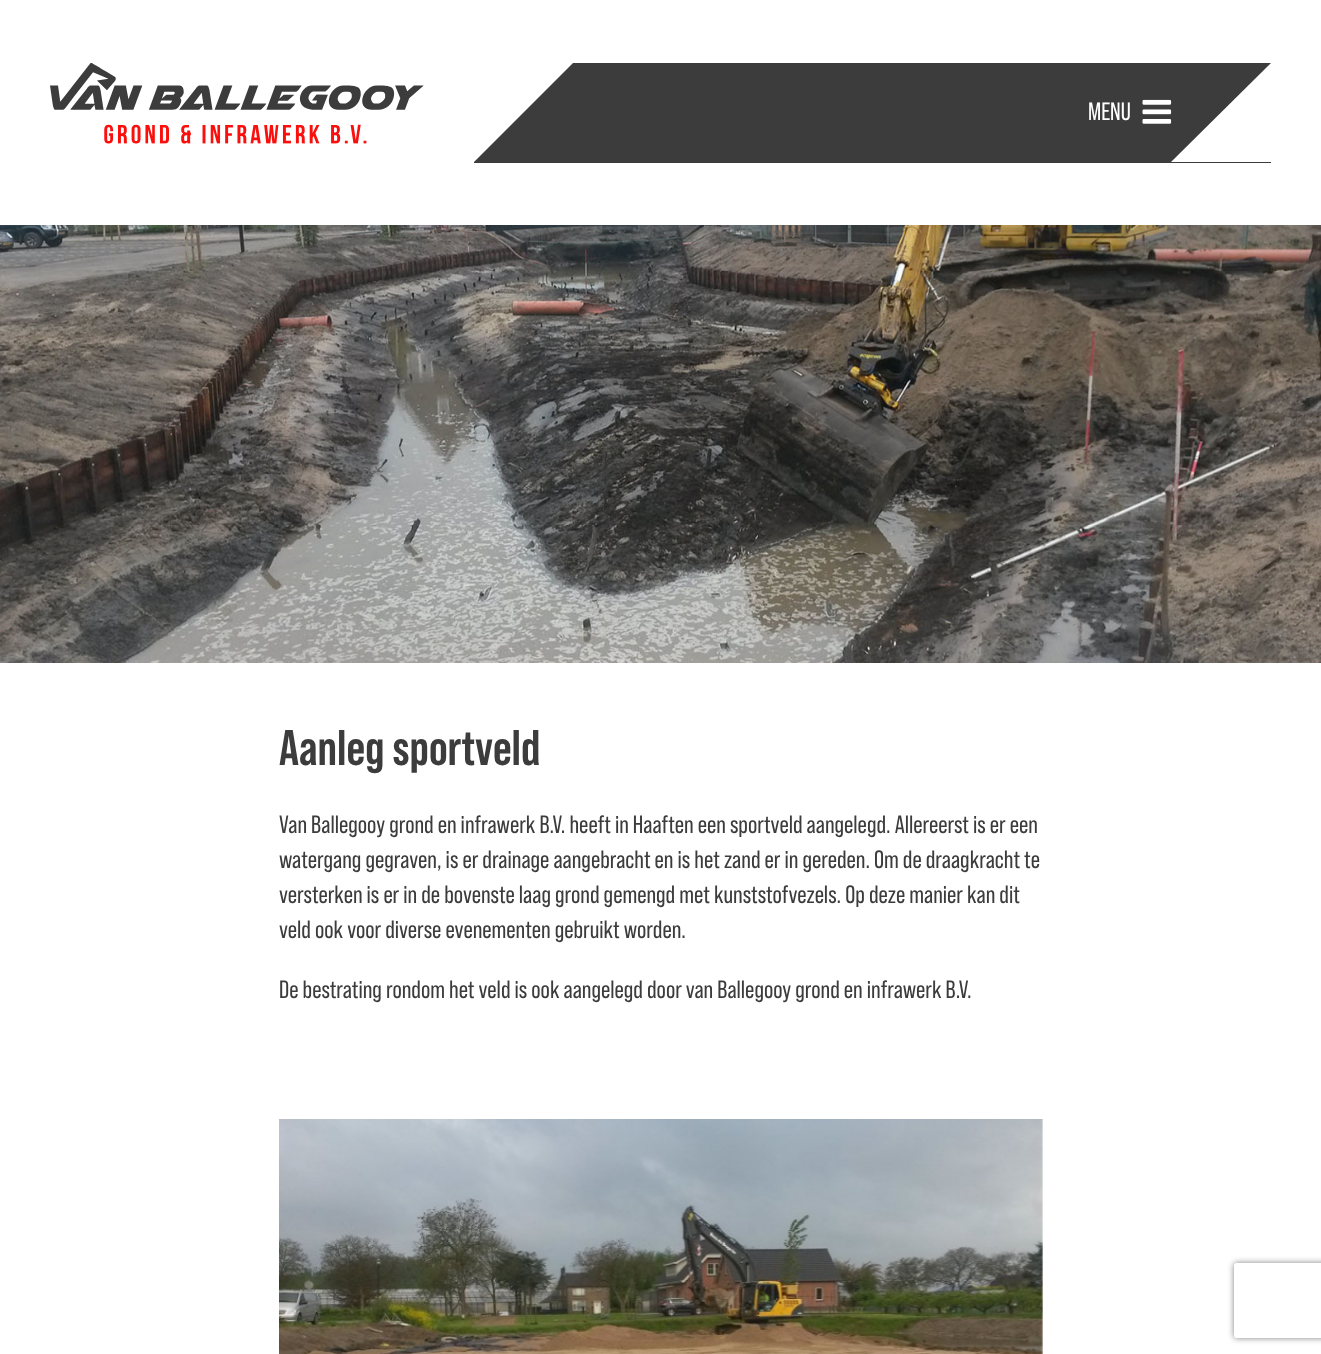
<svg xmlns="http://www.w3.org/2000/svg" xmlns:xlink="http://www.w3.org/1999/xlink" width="1321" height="1354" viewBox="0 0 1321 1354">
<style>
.cls-1{font:25px Bebas Neue;fill:#ffffff}
.cls-2{font:bold 50px Bebas Neue;fill:#3c3c3c}
.cls-3{font:25px Bebas Neue;fill:#3c3c3c}
</style>
<defs>
<clipPath id="clip1"><path d="M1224 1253H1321V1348H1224ZM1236.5 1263H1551.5C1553 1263 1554 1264 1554 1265.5V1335.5C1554 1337 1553 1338 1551.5 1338H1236.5C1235 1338 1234 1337 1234 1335.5V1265.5C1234 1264 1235 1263 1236.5 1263Z" clip-rule="evenodd"/></clipPath>
</defs>
<rect width="100%" height="100%" fill="#ffffff"/>
<image xlink:href="image0.png" x="50" y="63" width="374" height="81"/>
<rect fill="#3c3c3c" x="474" y="63" width="797" height="100"/>
<path fill="#ffffff" d="M474 63V162L573 63Z"/>
<image xlink:href="image1.png" x="1142" y="99" width="30" height="25"/>
<path fill="#ffffff" d="M1271 63V162H1171Z"/>
<image xlink:href="image2.png" x="0" y="225" width="1321" height="438"/>
<image xlink:href="image3.png" x="279" y="1119" width="764" height="235"/>
<g clip-path="url(#clip1)">
<rect fill="#808080" filter="blur(3px)" x="1234" y="1263" width="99" height="75" rx="2.5"/>
</g>
<text class="cls-1" x="1088" y="120">MENU</text>
<text class="cls-2" x="279" y="765">Aanleg sportveld</text>
<text class="cls-3"><tspan x="279" y="833">Van Ballegooy grond en infrawerk B.V. heeft in Haaften een sportveld aangelegd. Allereerst is er een</tspan><tspan x="279" y="868">watergang gegraven, is er drainage aangebracht en is het zand er in gereden. Om de draagkracht te</tspan><tspan x="279" y="903">versterken is er in de bovenste laag grond gemengd met kunststofvezels. Op deze manier kan dit</tspan><tspan x="279" y="938">veld ook voor diverse evenementen gebruikt worden.</tspan></text>
<text class="cls-3" x="279" y="998">De bestrating rondom het veld is ook aangelegd door van Ballegooy grond en infrawerk B.V.</text>
</svg>
